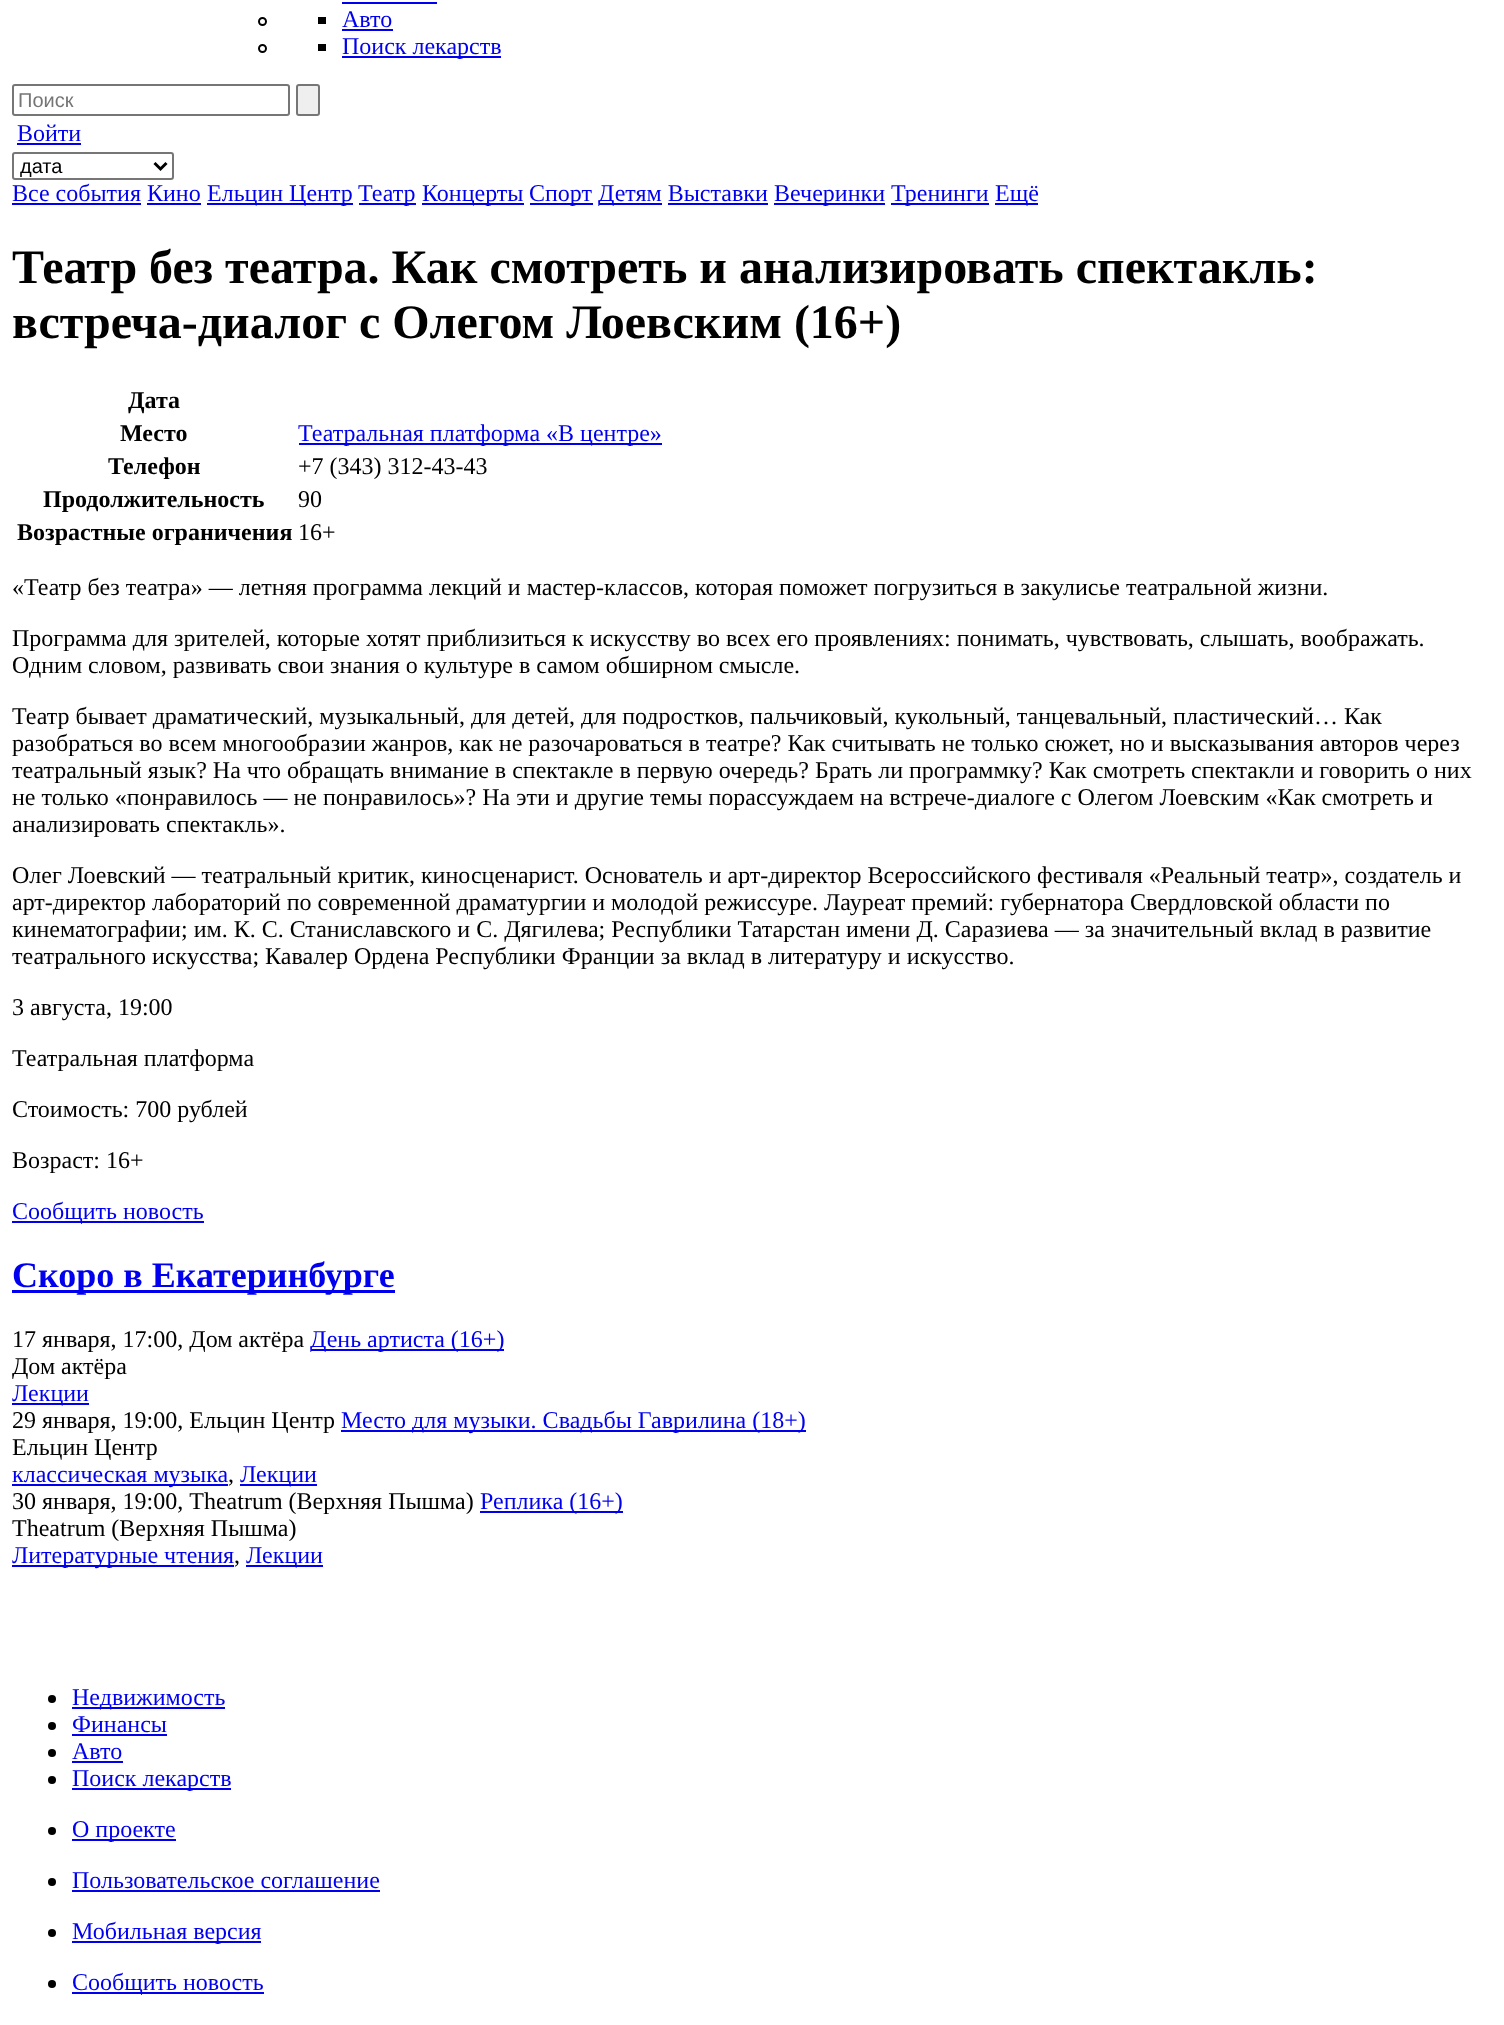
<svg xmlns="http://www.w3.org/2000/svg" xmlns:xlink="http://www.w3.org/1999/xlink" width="1504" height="2025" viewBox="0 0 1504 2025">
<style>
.cls-1{font:24px Liberation Serif;fill:#0000ee}
.cls-2{font:20px Liberation Sans;fill:#757575}
.cls-3{font:20px Liberation Sans;fill:#000000}
.cls-4{font:bold 48px Liberation Serif;fill:#000000}
.cls-5{font:bold 24px Liberation Serif;fill:#000000}
.cls-6{font:24px Liberation Serif;fill:#000000}
.cls-7{font:bold 36px Liberation Serif;fill:#0000ee}
</style>
<defs>
<clipPath id="clip1"><rect x="20" y="153" width="129" height="26"/></clipPath>
</defs>
<rect width="100%" height="100%" fill="#ffffff"/>
<rect fill="#0000ee" x="342" y="2" width="95" height="2"/>
<circle fill="none" stroke="#000000" stroke-width="2" cx="262.5" cy="21.5" r="3.5"/>
<rect fill="#000000" x="318" y="17" width="8" height="7"/>
<rect fill="#0000ee" x="342" y="29" width="51" height="2"/>
<circle fill="none" stroke="#000000" stroke-width="2" cx="262.5" cy="48.5" r="3.5"/>
<rect fill="#000000" x="318" y="44" width="8" height="7"/>
<rect fill="#0000ee" x="342" y="56" width="159" height="2"/>
<rect fill="none" stroke="#767676" stroke-width="2" x="13" y="85" width="276" height="30" rx="2"/>
<rect fill="#efefef" stroke="#767676" stroke-width="2" x="297" y="85" width="22" height="30" rx="2"/>
<rect fill="#0000ee" x="17" y="143" width="64" height="2"/>
<rect fill="none" stroke="#767676" stroke-width="2" x="13" y="153" width="160" height="26" rx="2"/>
<path fill="none" stroke="#000000" stroke-width="3" d="M154.5 163L160.5 169L166.5 163"/>
<rect fill="#0000ee" x="12" y="203" width="129" height="2"/>
<rect fill="#0000ee" x="207" y="203" width="146" height="2"/>
<rect fill="#0000ee" x="359" y="203" width="57" height="2"/>
<rect fill="#0000ee" x="422" y="203" width="102" height="2"/>
<rect fill="#0000ee" x="530" y="203" width="63" height="2"/>
<rect fill="#0000ee" x="599" y="203" width="63" height="2"/>
<rect fill="#0000ee" x="774" y="203" width="111" height="2"/>
<rect fill="#0000ee" x="891" y="203" width="98" height="2"/>
<rect fill="#0000ee" x="995" y="203" width="43" height="2"/>
<rect fill="#0000ee" x="147" y="203" width="54" height="2"/>
<rect fill="#0000ee" x="668" y="203" width="100" height="2"/>
<rect fill="#0000ee" x="299" y="443" width="363" height="2"/>
<rect fill="#0000ee" x="12" y="1221" width="192" height="2"/>
<rect fill="#0000ee" x="12" y="1290" width="383" height="3"/>
<rect fill="#0000ee" x="311" y="1349" width="193" height="2"/>
<rect fill="#0000ee" x="12" y="1403" width="77" height="2"/>
<rect fill="#0000ee" x="341" y="1430" width="465" height="2"/>
<rect fill="#0000ee" x="12" y="1484" width="216" height="2"/>
<rect fill="#0000ee" x="240" y="1484" width="77" height="2"/>
<rect fill="#0000ee" x="480" y="1511" width="143" height="2"/>
<rect fill="#0000ee" x="12" y="1565" width="222" height="2"/>
<rect fill="#0000ee" x="246" y="1565" width="77" height="2"/>
<circle fill="#000000" cx="52" cy="1699" r="4"/>
<rect fill="#0000ee" x="72" y="1707" width="153" height="2"/>
<circle fill="#000000" cx="52" cy="1726" r="4"/>
<rect fill="#0000ee" x="72" y="1734" width="95" height="2"/>
<circle fill="#000000" cx="52" cy="1753" r="4"/>
<rect fill="#0000ee" x="72" y="1761" width="51" height="2"/>
<circle fill="#000000" cx="52" cy="1780" r="4"/>
<rect fill="#0000ee" x="72" y="1788" width="159" height="2"/>
<circle fill="#000000" cx="52" cy="1831" r="4"/>
<rect fill="#0000ee" x="72" y="1839" width="104" height="2"/>
<circle fill="#000000" cx="52" cy="1882" r="4"/>
<rect fill="#0000ee" x="72" y="1890" width="308" height="2"/>
<circle fill="#000000" cx="52" cy="1933" r="4"/>
<rect fill="#0000ee" x="72" y="1941" width="189" height="2"/>
<circle fill="#000000" cx="52" cy="1984" r="4"/>
<rect fill="#0000ee" x="72" y="1992" width="192" height="2"/>
<text class="cls-1"><tspan x="342" y="27">Авто</tspan><tspan x="342" y="54">Поиск лекарств</tspan></text>
<text class="cls-2" x="18" y="107">Поиск</text>
<text class="cls-1" x="17" y="141">Войти</text>
<g clip-path="url(#clip1)">
<text class="cls-3" x="20" y="173">дата</text>
</g>
<text class="cls-1" x="12" y="201">Все события Кино</text>
<text class="cls-1" x="207" y="201">Ельцин Центр</text>
<text class="cls-1" x="358" y="201">Театр</text>
<text class="cls-1" x="422" y="201">Концерты</text>
<text class="cls-1" x="529" y="201">Спорт</text>
<text class="cls-1" x="598" y="201">Детям Выставки</text>
<text class="cls-1" x="774" y="201">Вечеринки</text>
<text class="cls-1" x="891" y="201">Тренинги</text>
<text class="cls-1" x="995" y="201">Ещё</text>
<text class="cls-4"><tspan x="12" y="283">Театр без театра. Как смотреть и анализировать спектакль:</tspan><tspan x="12" y="338">встреча-диалог с Олегом Лоевским (16+)</tspan></text>
<text class="cls-5" x="128" y="408">Дата</text>
<text class="cls-5" x="120" y="441">Место</text>
<text class="cls-1" x="298" y="441">Театральная платформа «В центре»</text>
<text class="cls-5" x="108" y="474">Телефон</text>
<text class="cls-6" x="298" y="474">+7 (343) 312-43-43</text>
<text class="cls-5" x="43" y="507">Продолжительность</text>
<text class="cls-6" x="298" y="507">90</text>
<text class="cls-5" x="17" y="540">Возрастные ограничения</text>
<text class="cls-6" x="298" y="540">16+</text>
<text class="cls-6" x="12" y="595">«Театр без театра» — летняя программа лекций и мастер-классов, которая поможет погрузиться в закулисье театральной жизни.</text>
<text class="cls-6"><tspan x="12" y="646">Программа для зрителей, которые хотят приблизиться к искусству во всех его проявлениях: понимать, чувствовать, слышать, воображать.</tspan><tspan x="12" y="673">Одним словом, развивать свои знания о культуре в самом обширном смысле.</tspan></text>
<text class="cls-6"><tspan x="12" y="724">Театр бывает драматический, музыкальный, для детей, для подростков, пальчиковый, кукольный, танцевальный, пластический… Как</tspan><tspan x="12" y="751">разобраться во всем многообразии жанров, как не разочароваться в театре? Как считывать не только сюжет, но и высказывания авторов через</tspan><tspan x="12" y="778">театральный язык? На что обращать внимание в спектакле в первую очередь? Брать ли программку? Как смотреть спектакли и говорить о них</tspan><tspan x="12" y="805">не только «понравилось — не понравилось»? На эти и другие темы порассуждаем на встрече-диалоге с Олегом Лоевским «Как смотреть и</tspan><tspan x="12" y="832">анализировать спектакль».</tspan></text>
<text class="cls-6"><tspan x="12" y="883">Олег Лоевский — театральный критик, киносценарист. Основатель и арт-директор Всероссийского фестиваля «Реальный театр», создатель и</tspan><tspan x="12" y="910">арт-директор лабораторий по современной драматургии и молодой режиссуре. Лауреат премий: губернатора Свердловской области по</tspan><tspan x="12" y="937">кинематографии; им. К. С. Станиславского и С. Дягилева; Республики Татарстан имени Д. Саразиева — за значительный вклад в развитие</tspan><tspan x="12" y="964">театрального искусства; Кавалер Ордена Республики Франции за вклад в литературу и искусство.</tspan></text>
<text class="cls-6" x="12" y="1015">3 августа, 19:00</text>
<text class="cls-6" x="12" y="1066">Театральная платформа</text>
<text class="cls-6" x="12" y="1117">Стоимость: 700 рублей</text>
<text class="cls-6" x="12" y="1168">Возраст: 16+</text>
<text class="cls-1" x="12" y="1219">Сообщить новость</text>
<text class="cls-7" x="12" y="1287">Скоро в Екатеринбурге</text>
<text class="cls-6" x="12" y="1347">17 января, 17:00, Дом актёра</text>
<text class="cls-1" x="310" y="1347">День артиста (16+)</text>
<text class="cls-6" x="12" y="1374">Дом актёра</text>
<text class="cls-1" x="12" y="1401">Лекции</text>
<text class="cls-6" x="12" y="1428">29 января, 19:00, Ельцин Центр</text>
<text class="cls-1" x="341" y="1428">Место для музыки. Свадьбы Гаврилина (18+)</text>
<text class="cls-6" x="12" y="1455">Ельцин Центр</text>
<text class="cls-1" x="12" y="1482">классическая музыка</text>
<text class="cls-6" x="228" y="1482">,</text>
<text class="cls-1" x="240" y="1482">Лекции</text>
<text class="cls-6" x="12" y="1509">30 января, 19:00, Theatrum (Верхняя Пышма)</text>
<text class="cls-1" x="480" y="1509">Реплика (16+)</text>
<text class="cls-6" x="12" y="1536">Theatrum (Верхняя Пышма)</text>
<text class="cls-1" x="12" y="1563">Литературные чтения</text>
<text class="cls-6" x="234" y="1563">,</text>
<text class="cls-1" x="246" y="1563">Лекции</text>
<text class="cls-1"><tspan x="72" y="1705">Недвижимость</tspan><tspan x="72" y="1732">Финансы</tspan><tspan x="72" y="1759">Авто</tspan><tspan x="72" y="1786">Поиск лекарств</tspan></text>
<text class="cls-1" x="72" y="1837">О проекте</text>
<text class="cls-1" x="72" y="1888">Пользовательское соглашение</text>
<text class="cls-1" x="72" y="1939">Мобильная версия</text>
<text class="cls-1" x="72" y="1990">Сообщить новость</text>
</svg>
